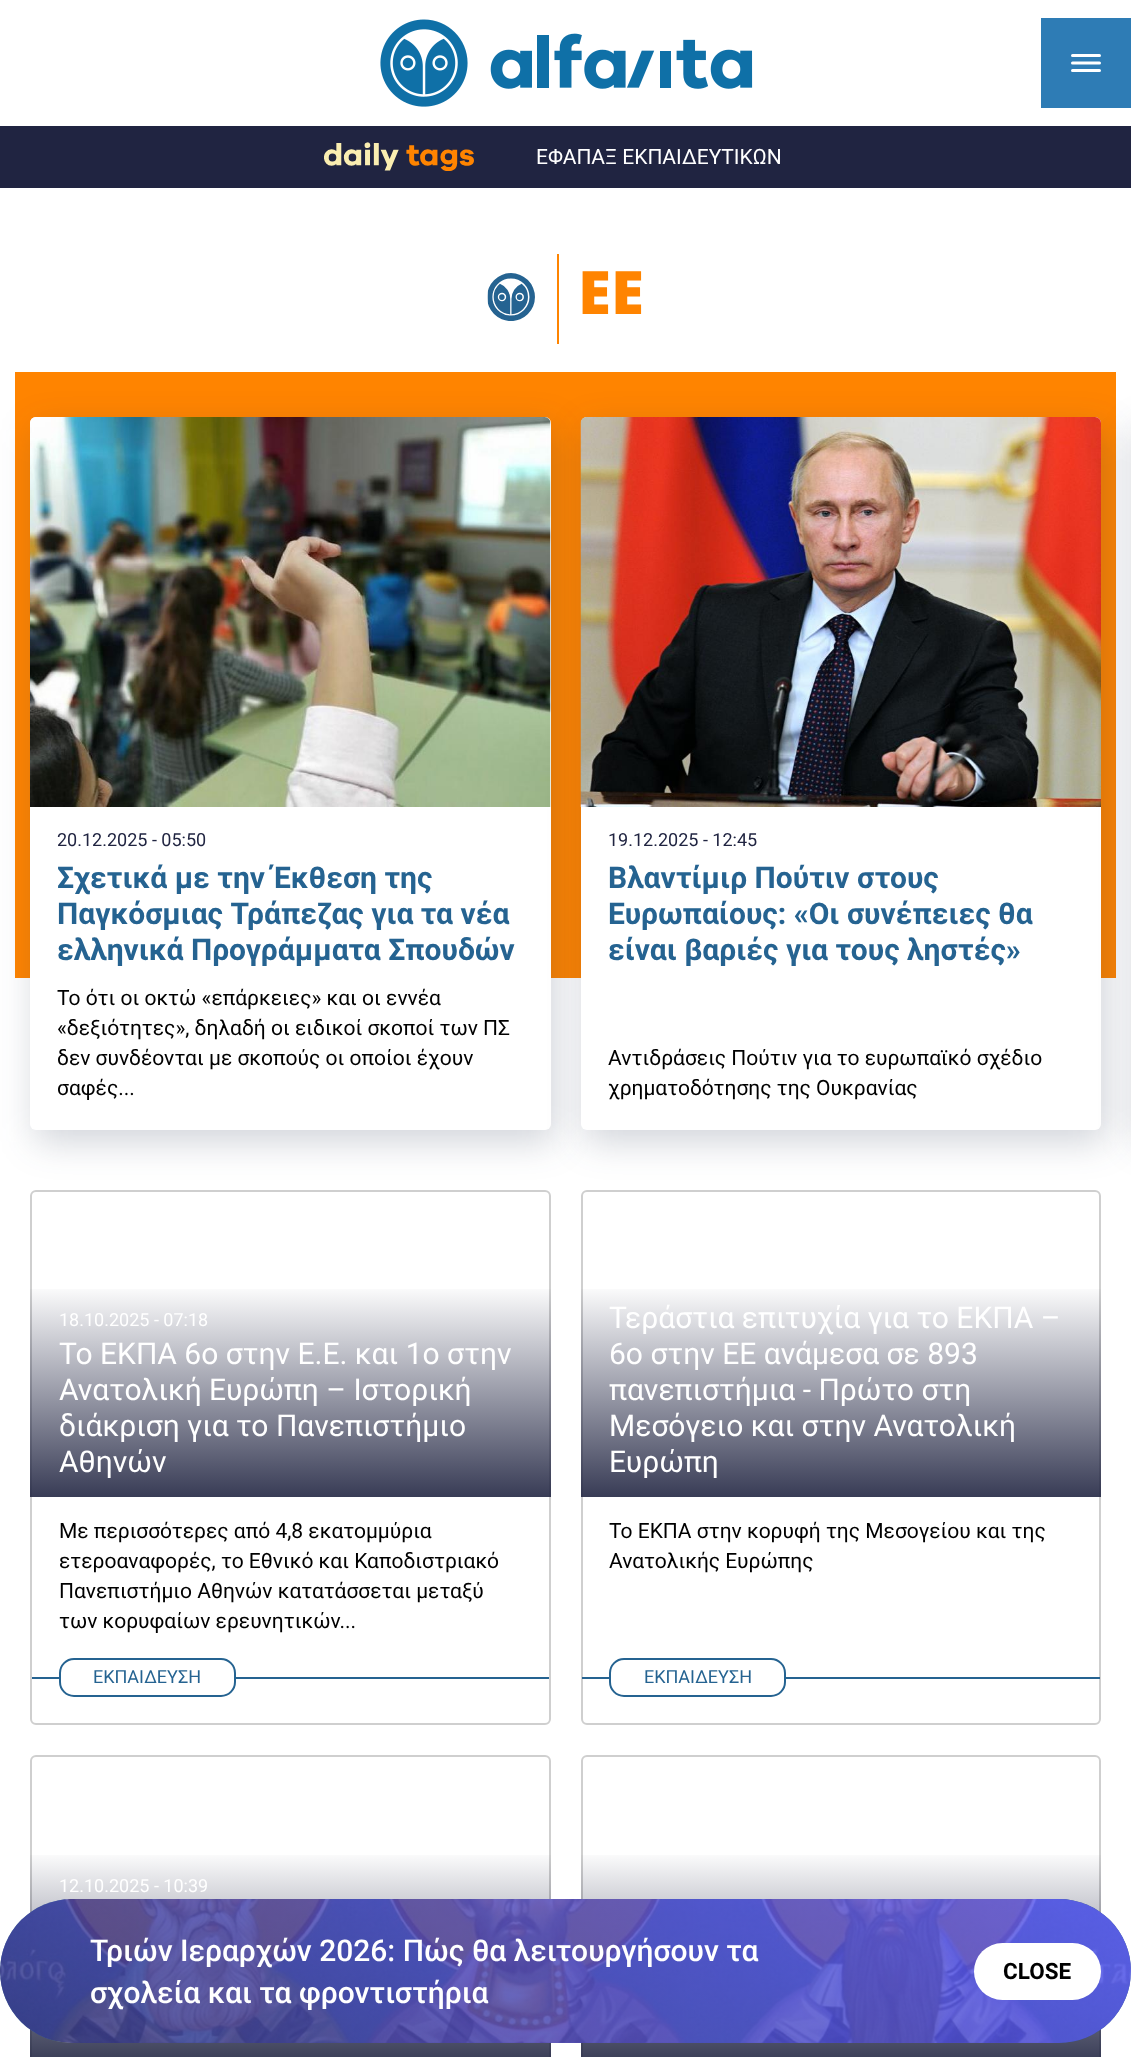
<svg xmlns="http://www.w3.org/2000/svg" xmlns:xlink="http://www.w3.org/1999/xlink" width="1131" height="2057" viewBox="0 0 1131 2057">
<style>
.cls-1{font:21px Roboto;fill:#ffffff}
.cls-2{font:800 60px Open Sans;fill:#ff8400}
.cls-3{font:18px Roboto;fill:#202441}
.cls-4{font:bold 30px Roboto;fill:#256391}
.cls-5{font:21px Roboto;fill:#000000}
.cls-6{font:18px Roboto;fill:#ffffff}
.cls-7{font:30px Roboto;fill:#ffffff}
.cls-8{font:18px Roboto;fill:#256391}
.cls-9{font:500 30px Roboto;fill:#ffffff}
.cls-10{font:bold 22.5px Roboto;fill:#000000}
</style>
<defs>
<linearGradient id="g1" gradientUnits="userSpaceOnUse" x1="290" y1="1284" x2="290" y2="1499"><stop offset="0" stop-color="#202441" stop-opacity="0"/><stop offset="1" stop-color="#202441" stop-opacity="0.9"/></linearGradient>
<linearGradient id="g2" gradientUnits="userSpaceOnUse" x1="841" y1="1284" x2="841" y2="1499"><stop offset="0" stop-color="#202441" stop-opacity="0"/><stop offset="1" stop-color="#202441" stop-opacity="0.9"/></linearGradient>
<linearGradient id="g3" gradientUnits="userSpaceOnUse" x1="290" y1="1850" x2="290" y2="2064"><stop offset="0" stop-color="#202441" stop-opacity="0"/><stop offset="1" stop-color="#202441" stop-opacity="0.9"/></linearGradient>
<linearGradient id="g4" gradientUnits="userSpaceOnUse" x1="841" y1="1850" x2="841" y2="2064"><stop offset="0" stop-color="#202441" stop-opacity="0"/><stop offset="1" stop-color="#202441" stop-opacity="0.9"/></linearGradient>
<linearGradient id="g5" gradientUnits="userSpaceOnUse" x1="703" y1="1690" x2="428" y2="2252"><stop offset="0" stop-color="#6563ff" stop-opacity="0.83"/><stop offset="1" stop-color="#333280" stop-opacity="0.83"/></linearGradient>
</defs>
<rect width="100%" height="100%" fill="#ffffff"/>
<image xlink:href="image0.png" x="380" y="19" width="373" height="88"/>
<rect fill="#2e7cb5" x="1041" y="18" width="90" height="90"/>
<image xlink:href="image1.png" x="1071" y="54" width="30" height="18"/>
<rect fill="#202441" x="0" y="126" width="1131" height="62"/>
<image xlink:href="image2.png" x="324" y="142" width="150" height="29"/>
<image xlink:href="image3.png" x="487" y="273" width="48" height="48"/>
<rect fill="#ff8400" x="557" y="254" width="2" height="90"/>
<rect fill="#ff8400" x="15" y="372" width="1101" height="606"/>
<rect fill="none" stroke="#cfcfcf" stroke-width="2" x="31" y="1191" width="519" height="533" rx="5"/>
<rect fill="none" stroke="#cfcfcf" stroke-width="2" x="582" y="1191" width="518" height="533" rx="5"/>
<rect fill="#273650" fill-opacity="0.21" filter="blur(18px)" x="35" y="429" width="520" height="713" rx="6"/>
<rect fill="#ffffff" x="30" y="417" width="521" height="713" rx="6"/>
<image xlink:href="image4.png" x="30" y="417" width="521" height="390"/>
<rect fill="#273650" fill-opacity="0.21" filter="blur(18px)" x="585" y="429" width="521" height="713" rx="6"/>
<rect fill="#ffffff" x="581" y="417" width="520" height="713" rx="6"/>
<image xlink:href="image5.png" x="580" y="417" width="521" height="390"/>
<rect fill="#273650" fill-opacity="0.21" filter="blur(18px)" x="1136" y="429" width="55" height="713" rx="6"/>
<rect fill="url(#g1)" x="30" y="1289" width="521" height="208"/>
<rect fill="#256391" x="32" y="1677" width="517" height="2"/>
<rect fill="#ffffff" stroke="#256391" stroke-width="2" x="60" y="1659" width="175" height="37" rx="14"/>
<rect fill="url(#g2)" x="581" y="1289" width="520" height="208"/>
<rect fill="#256391" x="582" y="1677" width="518" height="2"/>
<rect fill="#ffffff" stroke="#256391" stroke-width="2" x="610" y="1659" width="175" height="37" rx="14"/>
<rect fill="none" stroke="#cfcfcf" stroke-width="2" x="31" y="1756" width="519" height="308" rx="5"/>
<rect fill="url(#g3)" x="30" y="1855" width="521" height="202"/>
<rect fill="none" stroke="#cfcfcf" stroke-width="2" x="582" y="1756" width="518" height="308" rx="5"/>
<rect fill="url(#g4)" x="581" y="1855" width="520" height="202"/>
<image xlink:href="image6.png" x="0" y="1899" width="1131" height="144"/>
<rect fill="url(#g5)" x="0" y="1899" width="1131" height="144" rx="72"/>
<rect fill="#ffffff" x="974" y="1943" width="127" height="57" rx="28.5"/>
<text class="cls-1" x="536" y="164">ΕΦΑΠΑΞ ΕΚΠΑΙΔΕΥΤΙΚΩΝ</text>
<text class="cls-2" x="578" y="314">ΕΕ</text>
<text class="cls-3" x="57" y="846">20.12.2025 - 05:50</text>
<text class="cls-4"><tspan x="57" y="888">Σχετικά με την Έκθεση της</tspan><tspan x="57" y="924">Παγκόσμιας Τράπεζας για τα νέα</tspan><tspan x="57" y="960">ελληνικά Προγράμματα Σπουδών</tspan></text>
<text class="cls-5"><tspan x="57" y="1005">Το ότι οι οκτώ «επάρκειες» και οι εννέα</tspan><tspan x="57" y="1035">«δεξιότητες», δηλαδή οι ειδικοί σκοποί των ΠΣ</tspan><tspan x="57" y="1065">δεν συνδέονται με σκοπούς οι οποίοι έχουν</tspan><tspan x="57" y="1095">σαφές...</tspan></text>
<text class="cls-3" x="608" y="846">19.12.2025 - 12:45</text>
<text class="cls-4"><tspan x="608" y="888">Βλαντίμιρ Πούτιν στους</tspan><tspan x="608" y="924">Ευρωπαίους: «Οι συνέπειες θα</tspan><tspan x="608" y="960">είναι βαριές για τους ληστές»</tspan></text>
<text class="cls-5"><tspan x="608" y="1065">Αντιδράσεις Πούτιν για το ευρωπαϊκό σχέδιο</tspan><tspan x="608" y="1095">χρηματοδότησης της Ουκρανίας</tspan></text>
<text class="cls-6" x="59" y="1326">18.10.2025 - 07:18</text>
<text class="cls-7"><tspan x="59" y="1364">Το ΕΚΠΑ 6ο στην Ε.Ε. και 1ο στην</tspan><tspan x="59" y="1400">Ανατολική Ευρώπη – Ιστορική</tspan><tspan x="59" y="1436">διάκριση για το Πανεπιστήμιο</tspan><tspan x="59" y="1472">Αθηνών</tspan></text>
<text class="cls-5"><tspan x="59" y="1538">Με περισσότερες από 4,8 εκατομμύρια</tspan><tspan x="59" y="1568">ετεροαναφορές, το Εθνικό και Καποδιστριακό</tspan><tspan x="59" y="1598">Πανεπιστήμιο Αθηνών κατατάσσεται μεταξύ</tspan><tspan x="59" y="1628">των κορυφαίων ερευνητικών...</tspan></text>
<text class="cls-8" x="93" y="1683">ΕΚΠΑΙΔΕΥΣΗ</text>
<text class="cls-7"><tspan x="609" y="1328">Τεράστια επιτυχία για το ΕΚΠΑ –</tspan><tspan x="609" y="1364">6ο στην ΕΕ ανάμεσα σε 893</tspan><tspan x="609" y="1400">πανεπιστήμια - Πρώτο στη</tspan><tspan x="609" y="1436">Μεσόγειο και στην Ανατολική</tspan><tspan x="609" y="1472">Ευρώπη</tspan></text>
<text class="cls-5"><tspan x="609" y="1538">Το ΕΚΠΑ στην κορυφή της Μεσογείου και της</tspan><tspan x="609" y="1568">Ανατολικής Ευρώπης</tspan></text>
<text class="cls-8" x="644" y="1683">ΕΚΠΑΙΔΕΥΣΗ</text>
<text class="cls-6" x="59" y="1892">12.10.2025 - 10:39</text>
<text class="cls-9"><tspan x="90" y="1961">Τριών Ιεραρχών 2026: Πώς θα λειτουργήσουν τα</tspan><tspan x="90" y="2003">σχολεία και τα φροντιστήρια</tspan></text>
<text class="cls-10" x="1003" y="1979">CLOSE</text>
</svg>
